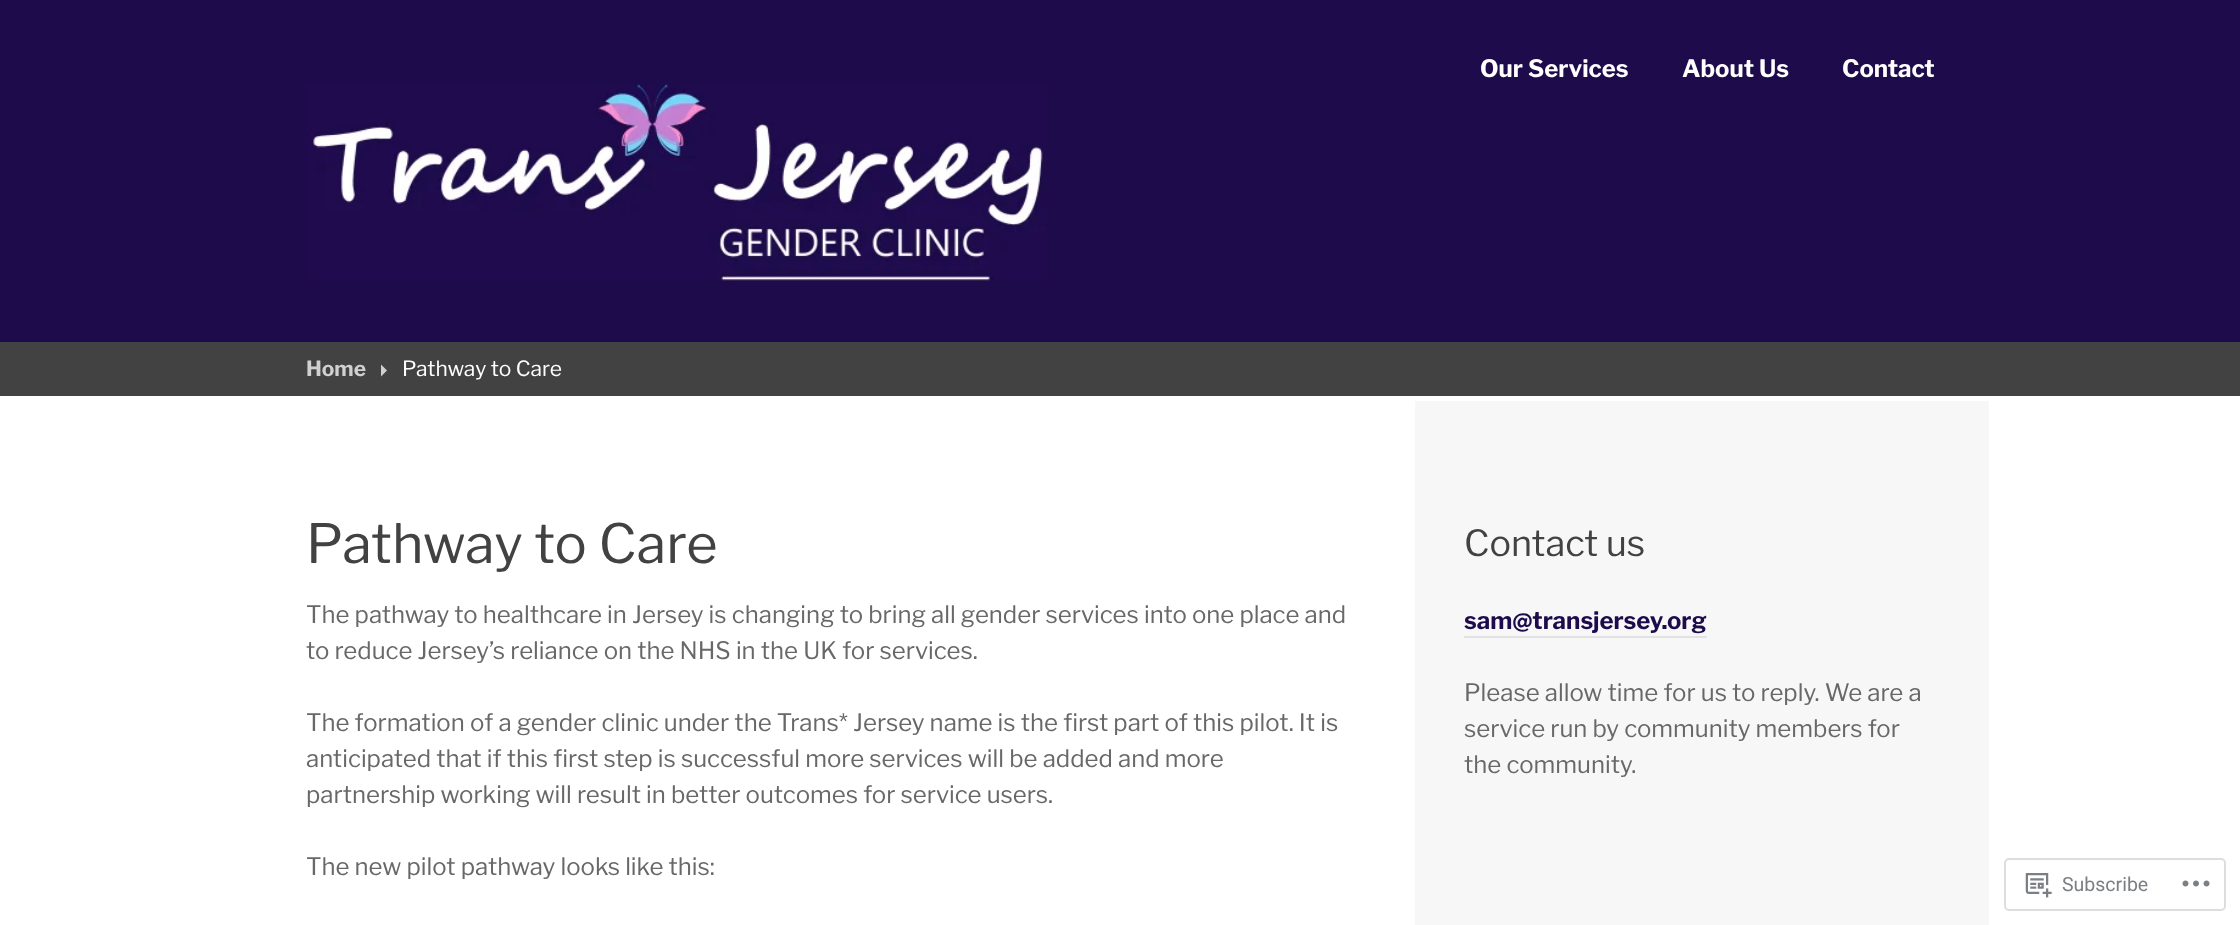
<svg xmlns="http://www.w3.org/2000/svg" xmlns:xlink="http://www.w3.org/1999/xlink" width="2240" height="925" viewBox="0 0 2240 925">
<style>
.cls-1{font:bold 24px Libre Franklin;fill:#ffffff}
.cls-2{font:bold 21px Libre Franklin;fill:#d0d0d0}
.cls-3{font:21px Libre Franklin;fill:#ffffff}
.cls-4{font:54px Libre Franklin;fill:#424242}
.cls-5{font:24px Libre Franklin;fill:#686868}
.cls-6{font:36px Libre Franklin;fill:#424242}
.cls-7{font:bold 24px Libre Franklin;fill:#1d0b4b}
.cls-8{font:19.5px Roboto;fill:#7b7f85}
</style>
<rect width="100%" height="100%" fill="#ffffff"/>
<rect fill="#1d0b4b" x="0" y="0" width="2240" height="342"/>
<image xlink:href="image0.png" x="306" y="84" width="741" height="197"/>
<rect fill="#424242" x="0" y="342" width="2240" height="54"/>
<path fill="#d0d0d0" d="M381 376.5V364.5L387 370.5Z"/>
<rect fill="#f7f7f7" x="1415" y="401" width="574" height="524"/>
<rect fill="#e2e2e2" x="1464" y="636" width="243" height="2"/>
<rect fill="none" stroke="#dddddf" stroke-width="2" x="2005" y="859" width="220" height="51" rx="4"/>
<image xlink:href="image1.png" x="2025" y="873" width="27" height="25"/>
<image xlink:href="image2.png" x="2182" y="880" width="28" height="7"/>
<text class="cls-1" x="1480" y="77">Our Services</text>
<text class="cls-1" x="1682" y="77">About Us</text>
<text class="cls-1" x="1842" y="77">Contact</text>
<text class="cls-2" x="306" y="376">Home</text>
<text class="cls-3" x="402" y="376">Pathway to Care</text>
<text class="cls-4" x="306" y="563">Pathway to Care</text>
<text class="cls-5"><tspan x="306" y="623">The pathway to healthcare in Jersey is changing to bring all gender services into one place and</tspan><tspan x="306" y="659">to reduce Jersey’s reliance on the NHS in the UK for services.</tspan></text>
<text class="cls-5"><tspan x="306" y="731">The formation of a gender clinic under the Trans* Jersey name is the first part of this pilot. It is</tspan><tspan x="306" y="767">anticipated that if this first step is successful more services will be added and more</tspan><tspan x="306" y="803">partnership working will result in better outcomes for service users.</tspan></text>
<text class="cls-5" x="306" y="875">The new pilot pathway looks like this:</text>
<text class="cls-6" x="1464" y="556">Contact us</text>
<text class="cls-7" x="1464" y="629">sam@transjersey.org</text>
<text class="cls-5"><tspan x="1464" y="701">Please allow time for us to reply. We are a</tspan><tspan x="1464" y="737">service run by community members for</tspan><tspan x="1464" y="773">the community.</tspan></text>
<text class="cls-8" x="2062" y="891">Subscribe</text>
</svg>
